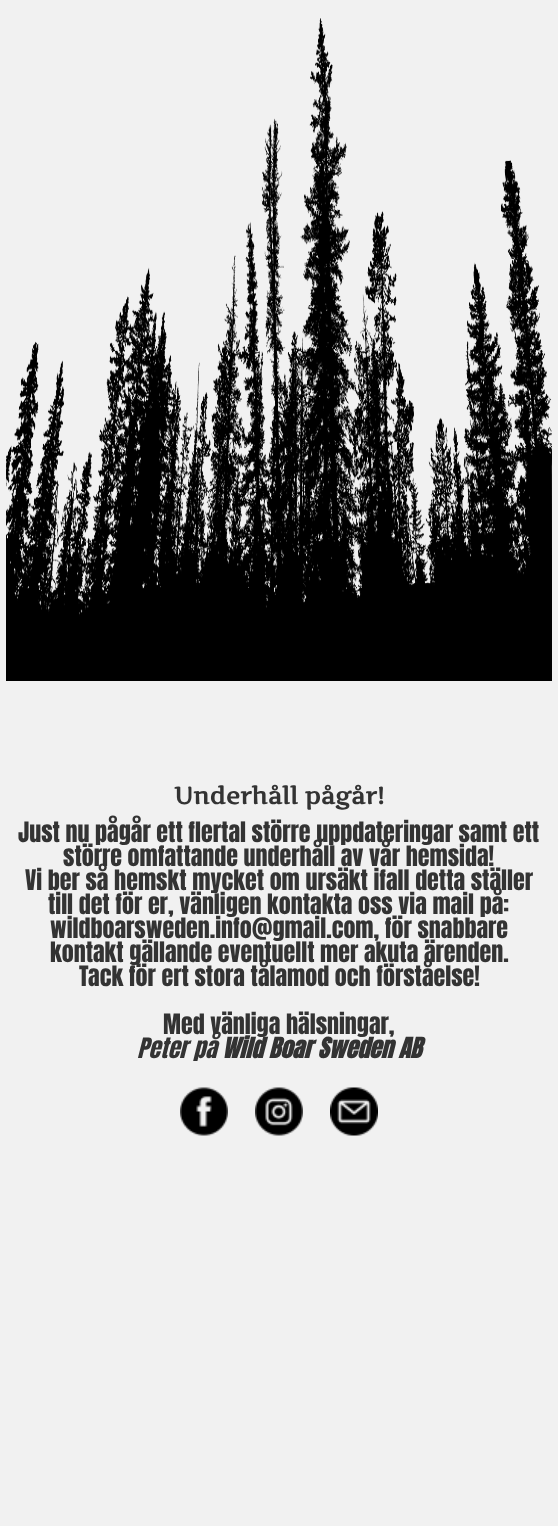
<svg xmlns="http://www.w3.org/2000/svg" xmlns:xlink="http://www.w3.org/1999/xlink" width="558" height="1526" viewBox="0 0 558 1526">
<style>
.cls-1{font:bold 24px Artifika;fill:#333333}
.cls-2{font:24px Anton;fill:#333333}
.cls-3{font:italic 24px Anton;fill:#333333}
.cls-4{font:italic bold 24px Anton;fill:#333333}
</style>
<rect width="100%" height="100%" fill="#f1f1f1"/>
<image xlink:href="image0.png" x="6" y="18" width="546" height="663"/>
<image xlink:href="image1.png" x="180" y="1087" width="48" height="49"/>
<image xlink:href="image2.png" x="255" y="1087" width="48" height="49"/>
<image xlink:href="image3.png" x="330" y="1087" width="48" height="49"/>
<text class="cls-1" x="174" y="804">Underhåll pågår!</text>
<text class="cls-2" x="18" y="842">Just nu pågår ett flertal större uppdateringar samt ett</text>
<text class="cls-2" x="63" y="866">större omfattande underhåll av vår hemsida!</text>
<text class="cls-2" x="25" y="890">Vi ber så hemskt mycket om ursäkt ifall detta ställer</text>
<text class="cls-2" x="48" y="914">till det för er, vänligen kontakta oss via mail på:</text>
<text class="cls-2"><tspan x="50" y="938">wildboarsweden.info@gmail.com, för snabbare</tspan><tspan x="50" y="962">kontakt gällande eventuellt mer akuta ärenden.</tspan></text>
<text class="cls-2" x="79" y="986">Tack för ert stora tålamod och förståelse!</text>
<text class="cls-2" x="163" y="1034">Med vänliga hälsningar,</text>
<text class="cls-3" x="137" y="1058">Peter på</text>
<text class="cls-4" x="222" y="1058">Wild Boar Sweden AB</text>
</svg>
